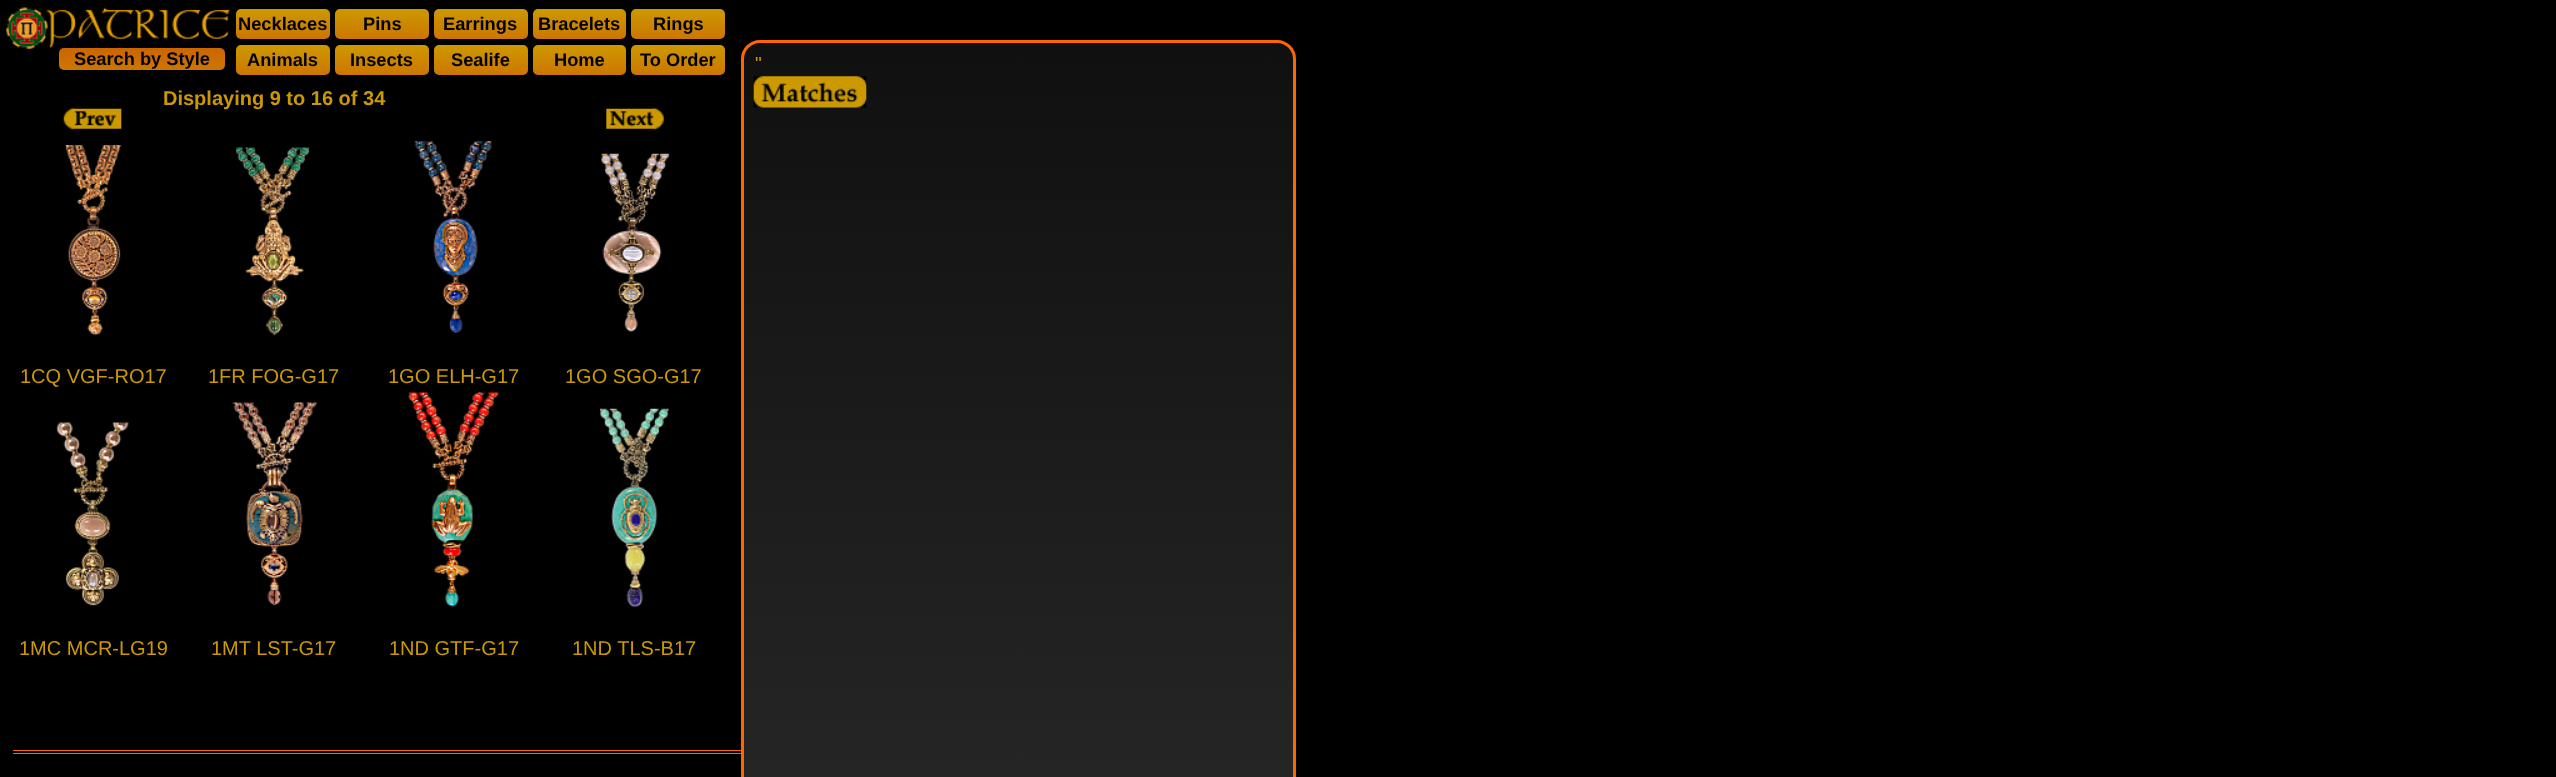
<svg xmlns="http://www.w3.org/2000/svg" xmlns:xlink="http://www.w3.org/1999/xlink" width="2556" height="777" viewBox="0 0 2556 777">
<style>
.cls-1{font:bold 18.25px Liberation Sans;fill:#000000}
.cls-2{font:19px Liberation Sans;fill:#cc9900}
.cls-3{font:bold 20px Liberation Sans;fill:#cc9900}
.cls-4{font:20px Liberation Sans;fill:#cc9900}
</style>
<defs>
<linearGradient id="g1" gradientUnits="userSpaceOnUse" x1="236" y1="9" x2="236" y2="39"><stop offset="0" stop-color="#cc9900"/><stop offset="1" stop-color="#cc7600"/></linearGradient>
<linearGradient id="g2" gradientUnits="userSpaceOnUse" x1="335" y1="9" x2="335" y2="39"><stop offset="0" stop-color="#cc9900"/><stop offset="1" stop-color="#cc7600"/></linearGradient>
<linearGradient id="g3" gradientUnits="userSpaceOnUse" x1="434" y1="9" x2="434" y2="39"><stop offset="0" stop-color="#cc9900"/><stop offset="1" stop-color="#cc7600"/></linearGradient>
<linearGradient id="g4" gradientUnits="userSpaceOnUse" x1="533" y1="9" x2="533" y2="39"><stop offset="0" stop-color="#cc9900"/><stop offset="1" stop-color="#cc7600"/></linearGradient>
<linearGradient id="g5" gradientUnits="userSpaceOnUse" x1="631" y1="9" x2="631" y2="39"><stop offset="0" stop-color="#cc9900"/><stop offset="1" stop-color="#cc7600"/></linearGradient>
<linearGradient id="g6" gradientUnits="userSpaceOnUse" x1="59" y1="48" x2="59" y2="70"><stop offset="0" stop-color="#cc6600"/><stop offset="1" stop-color="#cc7600"/></linearGradient>
<linearGradient id="g7" gradientUnits="userSpaceOnUse" x1="236" y1="45" x2="236" y2="75"><stop offset="0" stop-color="#cc9900"/><stop offset="1" stop-color="#cc7600"/></linearGradient>
<linearGradient id="g8" gradientUnits="userSpaceOnUse" x1="335" y1="45" x2="335" y2="75"><stop offset="0" stop-color="#cc9900"/><stop offset="1" stop-color="#cc7600"/></linearGradient>
<linearGradient id="g9" gradientUnits="userSpaceOnUse" x1="434" y1="45" x2="434" y2="75"><stop offset="0" stop-color="#cc9900"/><stop offset="1" stop-color="#cc7600"/></linearGradient>
<linearGradient id="g10" gradientUnits="userSpaceOnUse" x1="533" y1="45" x2="533" y2="75"><stop offset="0" stop-color="#cc9900"/><stop offset="1" stop-color="#cc7600"/></linearGradient>
<linearGradient id="g11" gradientUnits="userSpaceOnUse" x1="631" y1="45" x2="631" y2="75"><stop offset="0" stop-color="#cc9900"/><stop offset="1" stop-color="#cc7600"/></linearGradient>
<clipPath id="clip1"><rect x="741" y="40" width="555" height="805" rx="19"/></clipPath>
<linearGradient id="g12" gradientUnits="userSpaceOnUse" x1="744" y1="43" x2="744" y2="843"><stop offset="0" stop-color="#101010"/><stop offset="1" stop-color="#272727"/></linearGradient>
</defs>
<rect width="100%" height="100%" fill="#000000"/>
<image xlink:href="image0.png" x="6" y="7" width="224" height="43"/>
<rect fill="url(#g1)" x="236" y="9" width="94" height="30" rx="5"/>
<rect fill="url(#g2)" x="335" y="9" width="94" height="30" rx="5"/>
<rect fill="url(#g3)" x="434" y="9" width="94" height="30" rx="5"/>
<rect fill="url(#g4)" x="533" y="9" width="93" height="30" rx="5"/>
<rect fill="url(#g5)" x="631" y="9" width="94" height="30" rx="5"/>
<rect fill="url(#g6)" x="59" y="48" width="166" height="22" rx="5"/>
<rect fill="url(#g7)" x="236" y="45" width="94" height="30" rx="5"/>
<rect fill="url(#g8)" x="335" y="45" width="94" height="30" rx="5"/>
<rect fill="url(#g9)" x="434" y="45" width="94" height="30" rx="5"/>
<rect fill="url(#g10)" x="533" y="45" width="93" height="30" rx="5"/>
<rect fill="url(#g11)" x="631" y="45" width="94" height="30" rx="5"/>
<g clip-path="url(#clip1)">
<rect fill="url(#g12)" x="741" y="43" width="555" height="734"/>
</g>
<rect fill="none" stroke="#ff6600" stroke-width="3" x="742.5" y="41.5" width="552" height="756" rx="17.5"/>
<image xlink:href="image1.png" x="753" y="76" width="114" height="32"/>
<image xlink:href="image2.png" x="63" y="106" width="59" height="26"/>
<image xlink:href="image3.png" x="606" y="106" width="58" height="26"/>
<image xlink:href="image4.png" x="65" y="145" width="57" height="191"/>
<image xlink:href="image5.png" x="236" y="147" width="74" height="189"/>
<image xlink:href="image6.png" x="414" y="141" width="78" height="192"/>
<image xlink:href="image7.png" x="601" y="153" width="69" height="179"/>
<image xlink:href="image8.png" x="56" y="422" width="73" height="184"/>
<image xlink:href="image9.png" x="232" y="402" width="86" height="204"/>
<image xlink:href="image10.png" x="408" y="392" width="91" height="215"/>
<image xlink:href="image11.png" x="600" y="408" width="69" height="200"/>
<rect fill="#ff6600" x="13" y="750" width="728" height="1"/>
<rect fill="#ff6600" x="13" y="753" width="728" height="1"/>
<text class="cls-1" x="238" y="30">Necklaces</text>
<text class="cls-1" x="363" y="30">Pins</text>
<text class="cls-1" x="443" y="30">Earrings</text>
<text class="cls-1" x="538" y="30">Bracelets</text>
<text class="cls-1" x="653" y="30">Rings</text>
<text class="cls-1" x="74" y="65">Search by Style</text>
<text class="cls-1" x="247" y="66">Animals</text>
<text class="cls-1" x="350" y="66">Insects</text>
<text class="cls-1" x="451" y="66">Sealife</text>
<text class="cls-1" x="554" y="66">Home</text>
<text class="cls-1" x="640" y="66">To Order</text>
<text class="cls-2" x="755" y="70">"</text>
<text class="cls-3" x="163" y="105">Displaying 9 to 16 of 34</text>
<text class="cls-4" x="20" y="383">1CQ VGF-RO17</text>
<text class="cls-4" x="208" y="383">1FR FOG-G17</text>
<text class="cls-4" x="388" y="383">1GO ELH-G17</text>
<text class="cls-4" x="565" y="383">1GO SGO-G17</text>
<text class="cls-4" x="19" y="655">1MC MCR-LG19</text>
<text class="cls-4" x="211" y="655">1MT LST-G17</text>
<text class="cls-4" x="389" y="655">1ND GTF-G17</text>
<text class="cls-4" x="572" y="655">1ND TLS-B17</text>
</svg>
